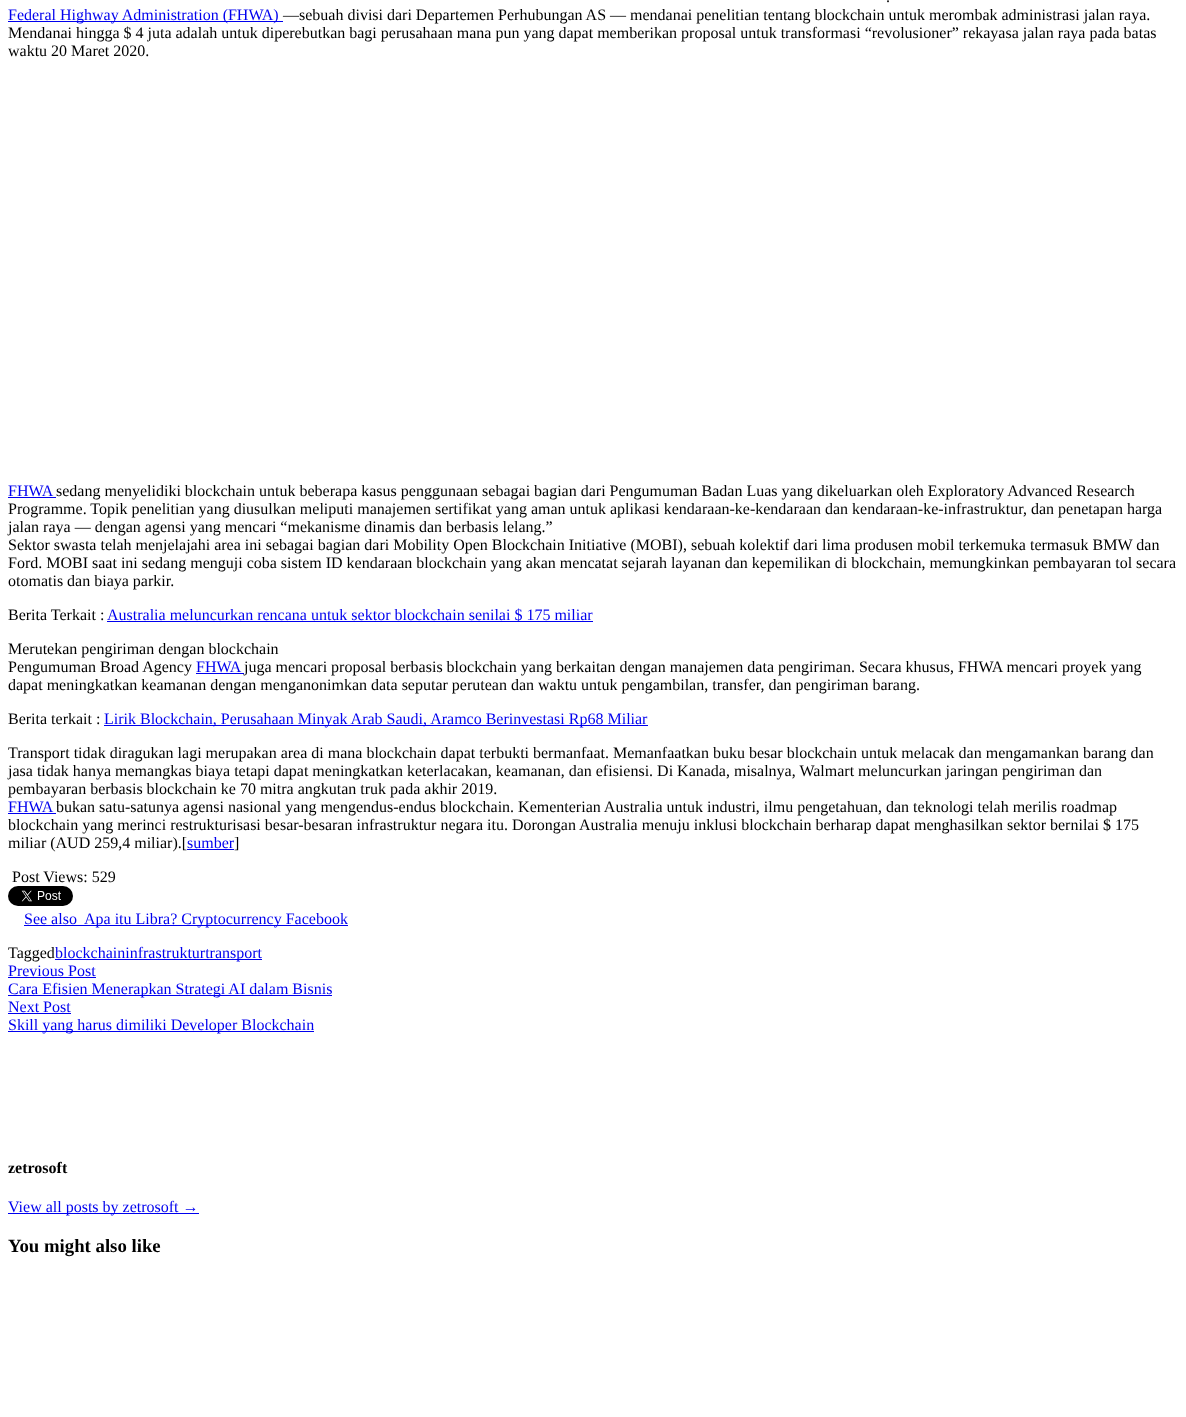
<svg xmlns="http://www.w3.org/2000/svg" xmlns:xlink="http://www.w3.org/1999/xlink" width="1186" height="1417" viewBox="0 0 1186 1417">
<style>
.cls-1{font:16px Liberation Serif;fill:#000000}
.cls-2{font:16px Liberation Serif;fill:#0000ee}
.cls-3{font:bold 16px Liberation Serif;fill:#000000}
.cls-4{font:bold 18.75px Liberation Serif;fill:#000000}
</style>
<rect width="100%" height="100%" fill="#ffffff"/>
<rect fill="#0000ee" x="8" y="21" width="275" height="1"/>
<rect fill="#0000ee" x="8" y="497" width="48" height="1"/>
<rect fill="#0000ee" x="107" y="621" width="486" height="1"/>
<rect fill="#0000ee" x="196" y="673" width="48" height="1"/>
<rect fill="#0000ee" x="104" y="725" width="544" height="1"/>
<rect fill="#0000ee" x="8" y="813" width="48" height="1"/>
<rect fill="#0000ee" x="187" y="849" width="47" height="1"/>
<image xlink:href="image0.png" x="8" y="886" width="65" height="20"/>
<rect fill="#0000ee" x="24" y="925" width="324" height="1"/>
<rect fill="#0000ee" x="55" y="959" width="207" height="1"/>
<rect fill="#0000ee" x="8" y="977" width="88" height="1"/>
<rect fill="#0000ee" x="8" y="995" width="324" height="1"/>
<rect fill="#0000ee" x="8" y="1013" width="63" height="1"/>
<rect fill="#0000ee" x="8" y="1031" width="306" height="1"/>
<rect fill="#0000ee" x="8" y="1213" width="191" height="1"/>
<text class="cls-1" x="886" y="2">.</text>
<text class="cls-2" x="8" y="20">Federal Highway Administration (FHWA)</text>
<text class="cls-1" x="283" y="20">—sebuah divisi dari Departemen Perhubungan AS — mendanai penelitian tentang blockchain untuk merombak administrasi jalan raya.</text>
<text class="cls-1"><tspan x="8" y="38">Mendanai hingga $ 4 juta adalah untuk diperebutkan bagi perusahaan mana pun yang dapat memberikan proposal untuk transformasi “revolusioner” rekayasa jalan raya pada batas</tspan><tspan x="8" y="56">waktu 20 Maret 2020.</tspan></text>
<text class="cls-2" x="8" y="496">FHWA</text>
<text class="cls-1" x="56" y="496">sedang menyelidiki blockchain untuk beberapa kasus penggunaan sebagai bagian dari Pengumuman Badan Luas yang dikeluarkan oleh Exploratory Advanced Research</text>
<text class="cls-1"><tspan x="8" y="514">Programme. Topik penelitian yang diusulkan meliputi manajemen sertifikat yang aman untuk aplikasi kendaraan-ke-kendaraan dan kendaraan-ke-infrastruktur, dan penetapan harga</tspan><tspan x="8" y="532">jalan raya — dengan agensi yang mencari “mekanisme dinamis dan berbasis lelang.”</tspan><tspan x="8" y="550">Sektor swasta telah menjelajahi area ini sebagai bagian dari Mobility Open Blockchain Initiative (MOBI), sebuah kolektif dari lima produsen mobil terkemuka termasuk BMW dan</tspan><tspan x="8" y="568">Ford. MOBI saat ini sedang menguji coba sistem ID kendaraan blockchain yang akan mencatat sejarah layanan dan kepemilikan di blockchain, memungkinkan pembayaran tol secara</tspan><tspan x="8" y="586">otomatis dan biaya parkir.</tspan></text>
<text class="cls-1" x="8" y="620">Berita Terkait :</text>
<text class="cls-2" x="107" y="620">Australia meluncurkan rencana untuk sektor blockchain senilai $ 175 miliar</text>
<text class="cls-1"><tspan x="8" y="654">Merutekan pengiriman dengan blockchain</tspan><tspan x="8" y="672">Pengumuman Broad Agency</tspan></text>
<text class="cls-2" x="196" y="672">FHWA</text>
<text class="cls-1" x="244" y="672">juga mencari proposal berbasis blockchain yang berkaitan dengan manajemen data pengiriman. Secara khusus, FHWA mencari proyek yang</text>
<text class="cls-1" x="8" y="690">dapat meningkatkan keamanan dengan menganonimkan data seputar perutean dan waktu untuk pengambilan, transfer, dan pengiriman barang.</text>
<text class="cls-1" x="8" y="724">Berita terkait :</text>
<text class="cls-2" x="104" y="724">Lirik Blockchain, Perusahaan Minyak Arab Saudi, Aramco Berinvestasi Rp68 Miliar</text>
<text class="cls-1"><tspan x="8" y="758">Transport tidak diragukan lagi merupakan area di mana blockchain dapat terbukti bermanfaat. Memanfaatkan buku besar blockchain untuk melacak dan mengamankan barang dan</tspan><tspan x="8" y="776">jasa tidak hanya memangkas biaya tetapi dapat meningkatkan keterlacakan, keamanan, dan efisiensi. Di Kanada, misalnya, Walmart meluncurkan jaringan pengiriman dan</tspan><tspan x="8" y="794">pembayaran berbasis blockchain ke 70 mitra angkutan truk pada akhir 2019.</tspan></text>
<text class="cls-2" x="8" y="812">FHWA</text>
<text class="cls-1" x="56" y="812">bukan satu-satunya agensi nasional yang mengendus-endus blockchain. Kementerian Australia untuk industri, ilmu pengetahuan, dan teknologi telah merilis roadmap</text>
<text class="cls-1"><tspan x="8" y="830">blockchain yang merinci restrukturisasi besar-besaran infrastruktur negara itu. Dorongan Australia menuju inklusi blockchain berharap dapat menghasilkan sektor bernilai $ 175</tspan><tspan x="8" y="848">miliar (AUD 259,4 miliar).[</tspan></text>
<text class="cls-2" x="187" y="848">sumber</text>
<text class="cls-1" x="234" y="848">]</text>
<text class="cls-1" x="12" y="882">Post Views: 529</text>
<text class="cls-2" x="24" y="924">See also</text>
<text class="cls-2" x="84" y="924">Apa itu Libra? Cryptocurrency Facebook</text>
<text class="cls-1" x="8" y="958">Tagged</text>
<text class="cls-2" x="55" y="958">blockchaininfrastrukturtransport</text>
<text class="cls-2"><tspan x="8" y="976">Previous Post</tspan><tspan x="8" y="994">Cara Efisien Menerapkan Strategi AI dalam Bisnis</tspan><tspan x="8" y="1012">Next Post</tspan><tspan x="8" y="1030">Skill yang harus dimiliki Developer Blockchain</tspan></text>
<text class="cls-3" x="8" y="1173">zetrosoft</text>
<text class="cls-2" x="8" y="1212">View all posts by zetrosoft →</text>
<text class="cls-4" x="8" y="1252">You might also like</text>
</svg>
